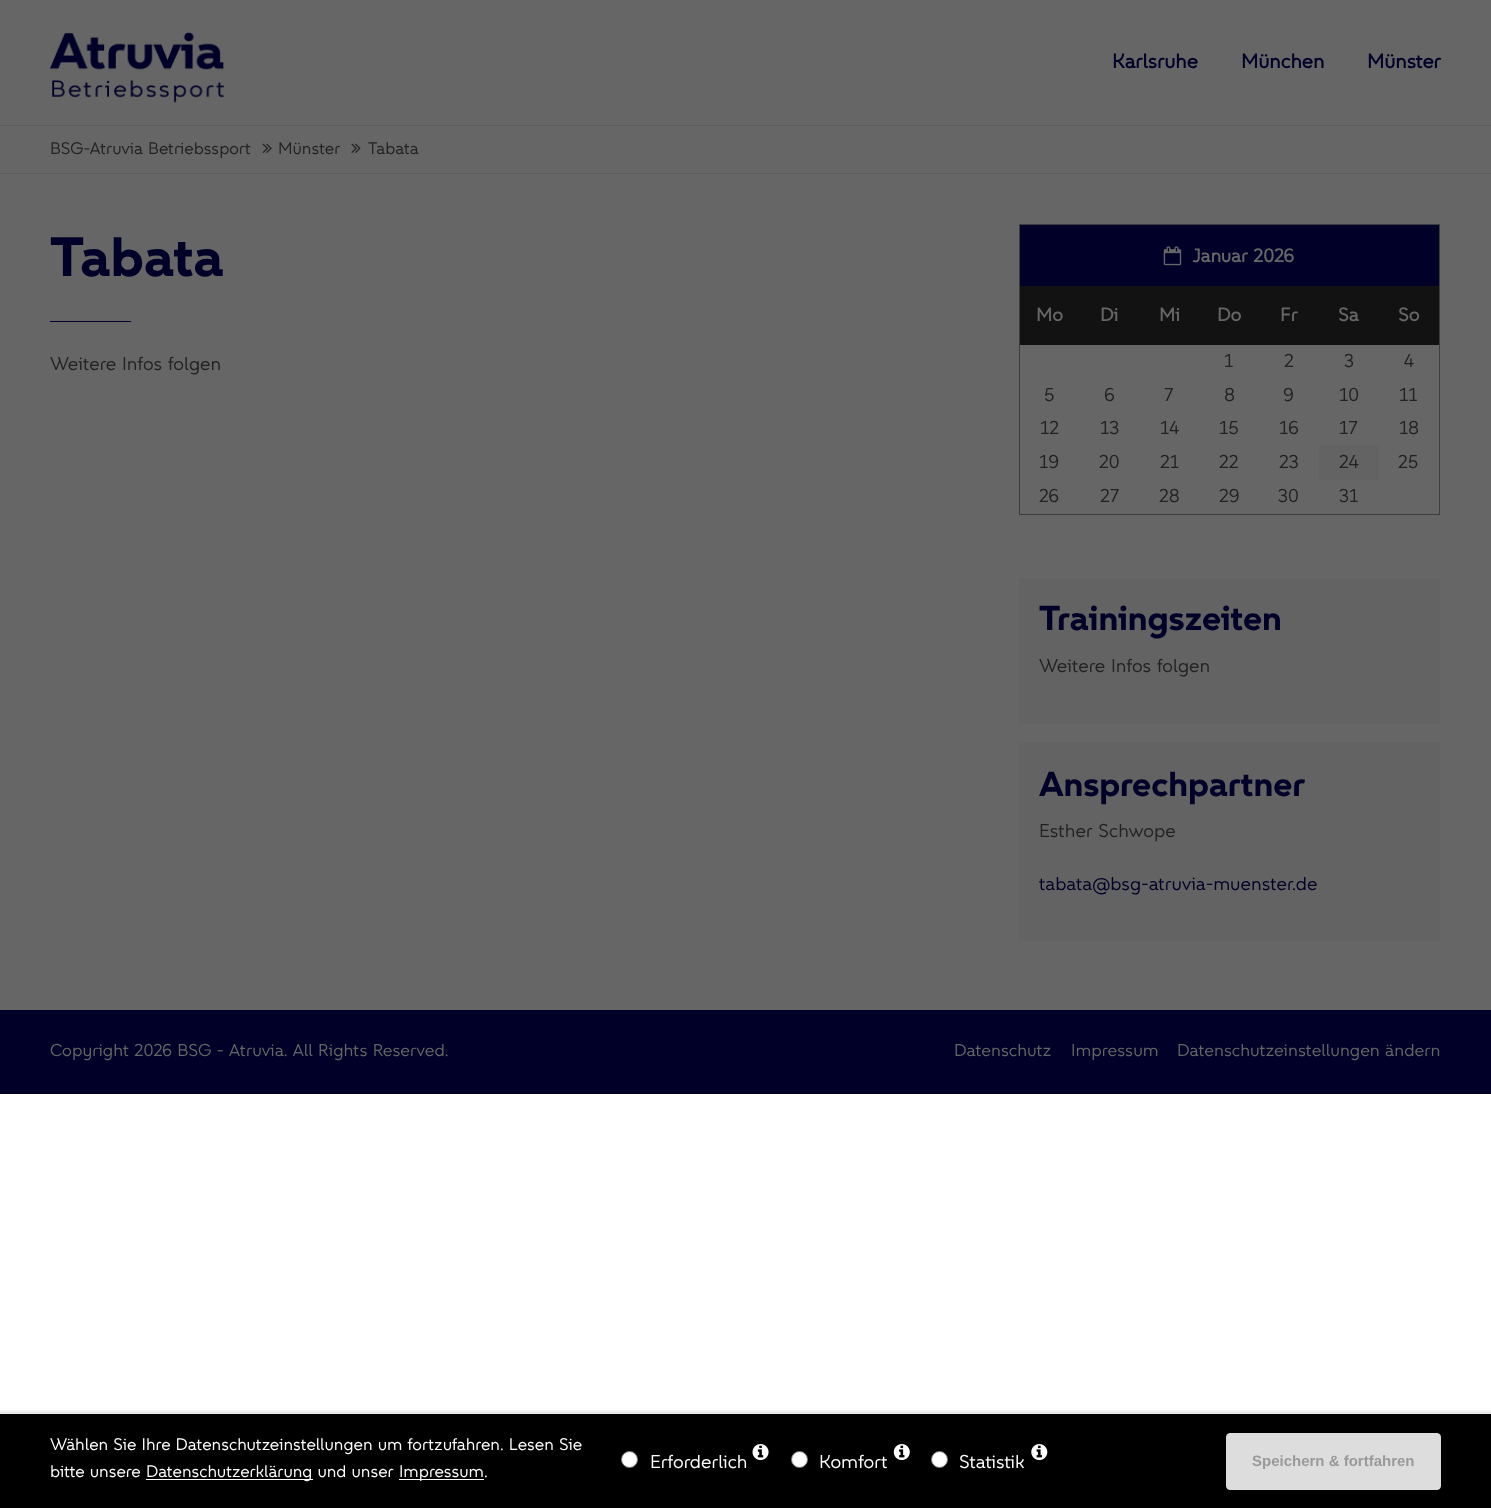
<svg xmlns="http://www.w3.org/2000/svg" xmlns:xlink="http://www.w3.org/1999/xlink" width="1491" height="1508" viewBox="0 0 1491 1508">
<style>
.cls-1{font:bold 20px 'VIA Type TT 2';fill:#000028}
.cls-2{font:16.9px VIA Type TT;fill:#222222}
.cls-3{font:bold 56px VIA Type TT;fill:#000028}
.cls-4{font:18.75px VIA Type TT;fill:#222222}
.cls-5{font:bold 18.75px 'VIA Type TT 2';fill:#666666}
.cls-6{font:bold 35px VIA Type TT;fill:#000028}
.cls-7{font:18.75px VIA Type TT;fill:#000028}
.cls-8{font:17.4px VIA Type TT;fill:#666666}
.cls-9{font:16.9px VIA Type TT;fill:#ffffff}
.cls-10{font:18.75px VIA Type TT;fill:#ffffff}
.cls-11{font:bold 15px Liberation Sans;fill:#9a9a9a}
</style>
<rect width="100%" height="100%" fill="#ffffff"/>
<rect fill="#666666" x="0" y="0" width="1491" height="1010"/>
<image xlink:href="image0.png" x="50" y="32" width="175" height="71"/>
<rect fill="#5c5c5c" x="0" y="125" width="1491" height="1"/>
<rect fill="#5c5c5c" x="0" y="173" width="1491" height="1"/>
<image xlink:href="image1.png" x="262" y="143" width="10" height="10"/>
<image xlink:href="image2.png" x="351" y="143" width="10" height="10"/>
<rect fill="#000028" x="50" y="321" width="81" height="1"/>
<rect fill="none" stroke="#3d3d3d" x="1019.5" y="224.5" width="420" height="290"/>
<rect fill="#000028" x="1020" y="225" width="419" height="61"/>
<image xlink:href="image3.png" x="1163" y="246" width="19" height="20"/>
<rect fill="#121212" x="1020" y="286" width="419" height="59"/>
<rect fill="#636363" x="1319" y="446" width="60" height="34"/>
<rect fill="#636363" x="1019" y="578" width="421" height="146"/>
<rect fill="#636363" x="1019" y="743" width="421" height="198"/>
<rect fill="#000028" x="0" y="1010" width="1491" height="84"/>
<rect fill="#000000" fill-opacity="0.1" filter="blur(1px)" x="-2" y="1411" width="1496" height="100"/>
<rect fill="#000000" x="0" y="1414" width="1491" height="94"/>
<rect fill="#ffffff" x="146" y="1479" width="167" height="1"/>
<rect fill="#ffffff" x="399" y="1479" width="85" height="1"/>
<circle fill="#ffffff" stroke="#767676" cx="629.5" cy="1459.5" r="8"/>
<image xlink:href="image4.png" x="752" y="1444" width="17" height="17"/>
<circle fill="#ffffff" stroke="#767676" cx="799.5" cy="1459.5" r="8"/>
<image xlink:href="image5.png" x="893" y="1444" width="17" height="17"/>
<circle fill="#ffffff" stroke="#767676" cx="939.5" cy="1459.5" r="8"/>
<image xlink:href="image6.png" x="1031" y="1444" width="17" height="17"/>
<rect fill="#dddddd" stroke="#dddddd" x="1226.5" y="1433.5" width="214" height="56" rx="3.5"/>
<text class="cls-1" x="1112" y="68">Karlsruhe</text>
<text class="cls-1" x="1241" y="68">München</text>
<text class="cls-1" x="1367" y="68">Münster</text>
<text class="cls-2" x="50" y="154">BSG-Atruvia Betriebssport</text>
<text class="cls-2" x="278" y="154">Münster</text>
<text class="cls-2" x="368" y="154">Tabata</text>
<text class="cls-3" x="50" y="276">Tabata</text>
<text class="cls-4" x="50" y="370">Weitere Infos folgen</text>
<text class="cls-5" x="1192" y="262">Januar 2026</text>
<text class="cls-5" x="1036" y="321">Mo</text>
<text class="cls-5" x="1100" y="321">Di</text>
<text class="cls-5" x="1159" y="321">Mi</text>
<text class="cls-5" x="1217" y="321">Do</text>
<text class="cls-5" x="1280" y="321">Fr</text>
<text class="cls-5" x="1338" y="321">Sa</text>
<text class="cls-5" x="1398" y="321">So</text>
<text class="cls-4" x="1224" y="367">1</text>
<text class="cls-4" x="1284" y="367">2</text>
<text class="cls-4" x="1344" y="367">3</text>
<text class="cls-4" x="1404" y="367">4</text>
<text class="cls-4" x="1044" y="401">5</text>
<text class="cls-4" x="1104" y="401">6</text>
<text class="cls-4" x="1164" y="401">7</text>
<text class="cls-4" x="1224" y="401">8</text>
<text class="cls-4" x="1283" y="401">9</text>
<text class="cls-4" x="1339" y="401">10</text>
<text class="cls-4" x="1399" y="401">11</text>
<text class="cls-4" x="1040" y="434">12</text>
<text class="cls-4" x="1100" y="434">13</text>
<text class="cls-4" x="1160" y="434">14</text>
<text class="cls-4" x="1219" y="434">15</text>
<text class="cls-4" x="1279" y="434">16</text>
<text class="cls-4" x="1339" y="434">17</text>
<text class="cls-4" x="1399" y="434">18</text>
<text class="cls-4" x="1039" y="468">19</text>
<text class="cls-4" x="1099" y="468">20</text>
<text class="cls-4" x="1160" y="468">21</text>
<text class="cls-4" x="1219" y="468">22</text>
<text class="cls-4" x="1279" y="468">23</text>
<text class="cls-4" x="1339" y="468">24</text>
<text class="cls-4" x="1398" y="468">25</text>
<text class="cls-4" x="1039" y="502">26</text>
<text class="cls-4" x="1100" y="502">27</text>
<text class="cls-4" x="1159" y="502">28</text>
<text class="cls-4" x="1219" y="502">29</text>
<text class="cls-4" x="1278" y="502">30</text>
<text class="cls-4" x="1339" y="502">31</text>
<text class="cls-6" x="1039" y="630">Trainingszeiten</text>
<text class="cls-4" x="1039" y="672">Weitere Infos folgen</text>
<text class="cls-6" x="1039" y="796">Ansprechpartner</text>
<text class="cls-4" x="1039" y="837">Esther Schwope</text>
<text class="cls-7" x="1039" y="890">tabata@bsg-atruvia-muenster.de</text>
<text class="cls-8" x="50" y="1056">Copyright 2026 BSG - Atruvia. All Rights Reserved.</text>
<text class="cls-8" x="954" y="1056">Datenschutz</text>
<text class="cls-8" x="1071" y="1056">Impressum</text>
<text class="cls-8" x="1177" y="1056">Datenschutzeinstellungen ändern</text>
<text class="cls-9"><tspan x="50" y="1450">Wählen Sie Ihre Datenschutzeinstellungen um fortzufahren. Lesen Sie</tspan><tspan x="50" y="1477">bitte unsere</tspan></text>
<text class="cls-9" x="146" y="1477">Datenschutzerklärung und unser</text>
<text class="cls-9" x="399" y="1477">Impressum.</text>
<text class="cls-10" x="650" y="1468">Erforderlich</text>
<text class="cls-10" x="819" y="1468">Komfort</text>
<text class="cls-10" x="959" y="1468">Statistik</text>
<text class="cls-11" x="1252" y="1466">Speichern &amp; fortfahren</text>
</svg>
